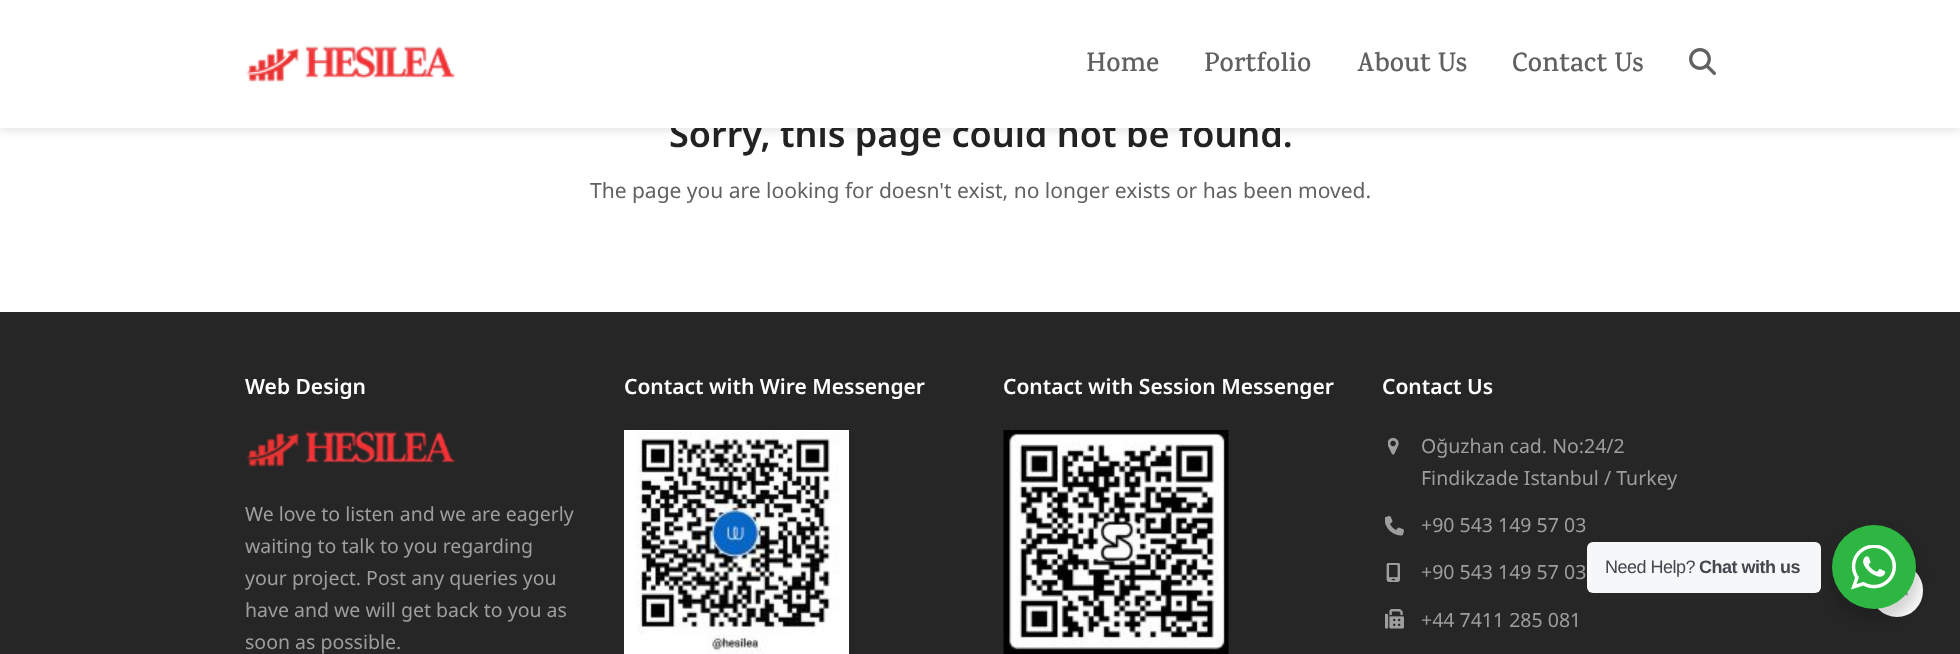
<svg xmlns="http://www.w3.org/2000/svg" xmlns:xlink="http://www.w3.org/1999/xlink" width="1960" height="654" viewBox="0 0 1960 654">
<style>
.cls-1{font:600 36px Noto Sans;fill:#222222}
.cls-2{font:600 27px Karma;fill:#616161}
.cls-3{font:21px Noto Sans;fill:#616161}
.cls-4{font:600 21px Noto Sans;fill:#ffffff}
.cls-5{font:19.5px Noto Sans;fill:#9e9e9e}
.cls-6{font:18px Liberation Sans;letter-spacing:-0.5px;fill:#43474e}
.cls-7{font:bold 18px Liberation Sans;letter-spacing:-0.5px;fill:#43474e}
</style>
<rect width="100%" height="100%" fill="#ffffff"/>
<rect fill="#000000" fill-opacity="0.1" filter="blur(4px)" x="0" y="3" width="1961" height="128"/>
<rect fill="#262626" x="0" y="312" width="1960" height="342"/>
<image xlink:href="image2.png" x="246" y="431" width="209" height="36"/>
<image xlink:href="image3.png" x="624" y="430" width="225" height="224"/>
<image xlink:href="image4.png" x="1003" y="430" width="226" height="224"/>
<image xlink:href="image5.png" x="1388" y="437" width="11" height="18"/>
<image xlink:href="image6.png" x="1385" y="516" width="19" height="20"/>
<image xlink:href="image7.png" x="1386" y="563" width="14" height="19"/>
<image xlink:href="image8.png" x="1385" y="609" width="19" height="20"/>
<rect fill="#f7f7f7" x="1871" y="564" width="52" height="53" rx="26"/>
<image xlink:href="image10.png" x="1905" y="592" width="3" height="4"/>
<rect fill="#000000" fill-opacity="0.14" filter="blur(6px)" x="1829" y="531" width="90" height="90" rx="45"/>
<rect fill="#f5f7f9" x="1587" y="542" width="234" height="51" rx="6"/>
<circle fill="#2db742" cx="1874" cy="567" r="42"/>
<image xlink:href="image9.png" x="1851" y="545" width="45" height="45"/>
<text class="cls-1" x="669" y="147">Sorry, this page could not be found.</text>
<rect fill="#ffffff" x="0" y="0" width="1960" height="128"/>
<image xlink:href="image1.png" x="1689" y="48" width="27" height="27"/>
<text class="cls-2" x="1512" y="71">Contact Us</text>
<text class="cls-2" x="1357" y="71">About Us</text>
<text class="cls-2" x="1204" y="71">Portfolio</text>
<text class="cls-2" x="1086" y="71">Home</text>
<image xlink:href="image0.png" x="246" y="46" width="209" height="36"/>
<text class="cls-3" x="590" y="198">The page you are looking for doesn't exist, no longer exists or has been moved.</text>
<text class="cls-4" x="245" y="394">Web Design</text>
<text class="cls-5"><tspan x="245" y="521">We love to listen and we are eagerly</tspan><tspan x="245" y="553">waiting to talk to you regarding</tspan><tspan x="245" y="585">your project. Post any queries you</tspan><tspan x="245" y="617">have and we will get back to you as</tspan><tspan x="245" y="649">soon as possible.</tspan></text>
<text class="cls-4" x="624" y="394">Contact with Wire Messenger</text>
<text class="cls-4" x="1003" y="394">Contact with Session Messenger</text>
<text class="cls-4" x="1382" y="394">Contact Us</text>
<text class="cls-5"><tspan x="1421" y="453">Oğuzhan cad. No:24/2</tspan><tspan x="1421" y="485">Findikzade Istanbul / Turkey</tspan></text>
<text class="cls-5" x="1421" y="532">+90 543 149 57 03</text>
<text class="cls-5" x="1421" y="579">+90 543 149 57 03</text>
<text class="cls-5" x="1421" y="627">+44 7411 285 081</text>
<text class="cls-6" x="1605" y="573">Need Help?</text>
<text class="cls-7" x="1699" y="573">Chat with us</text>
</svg>
